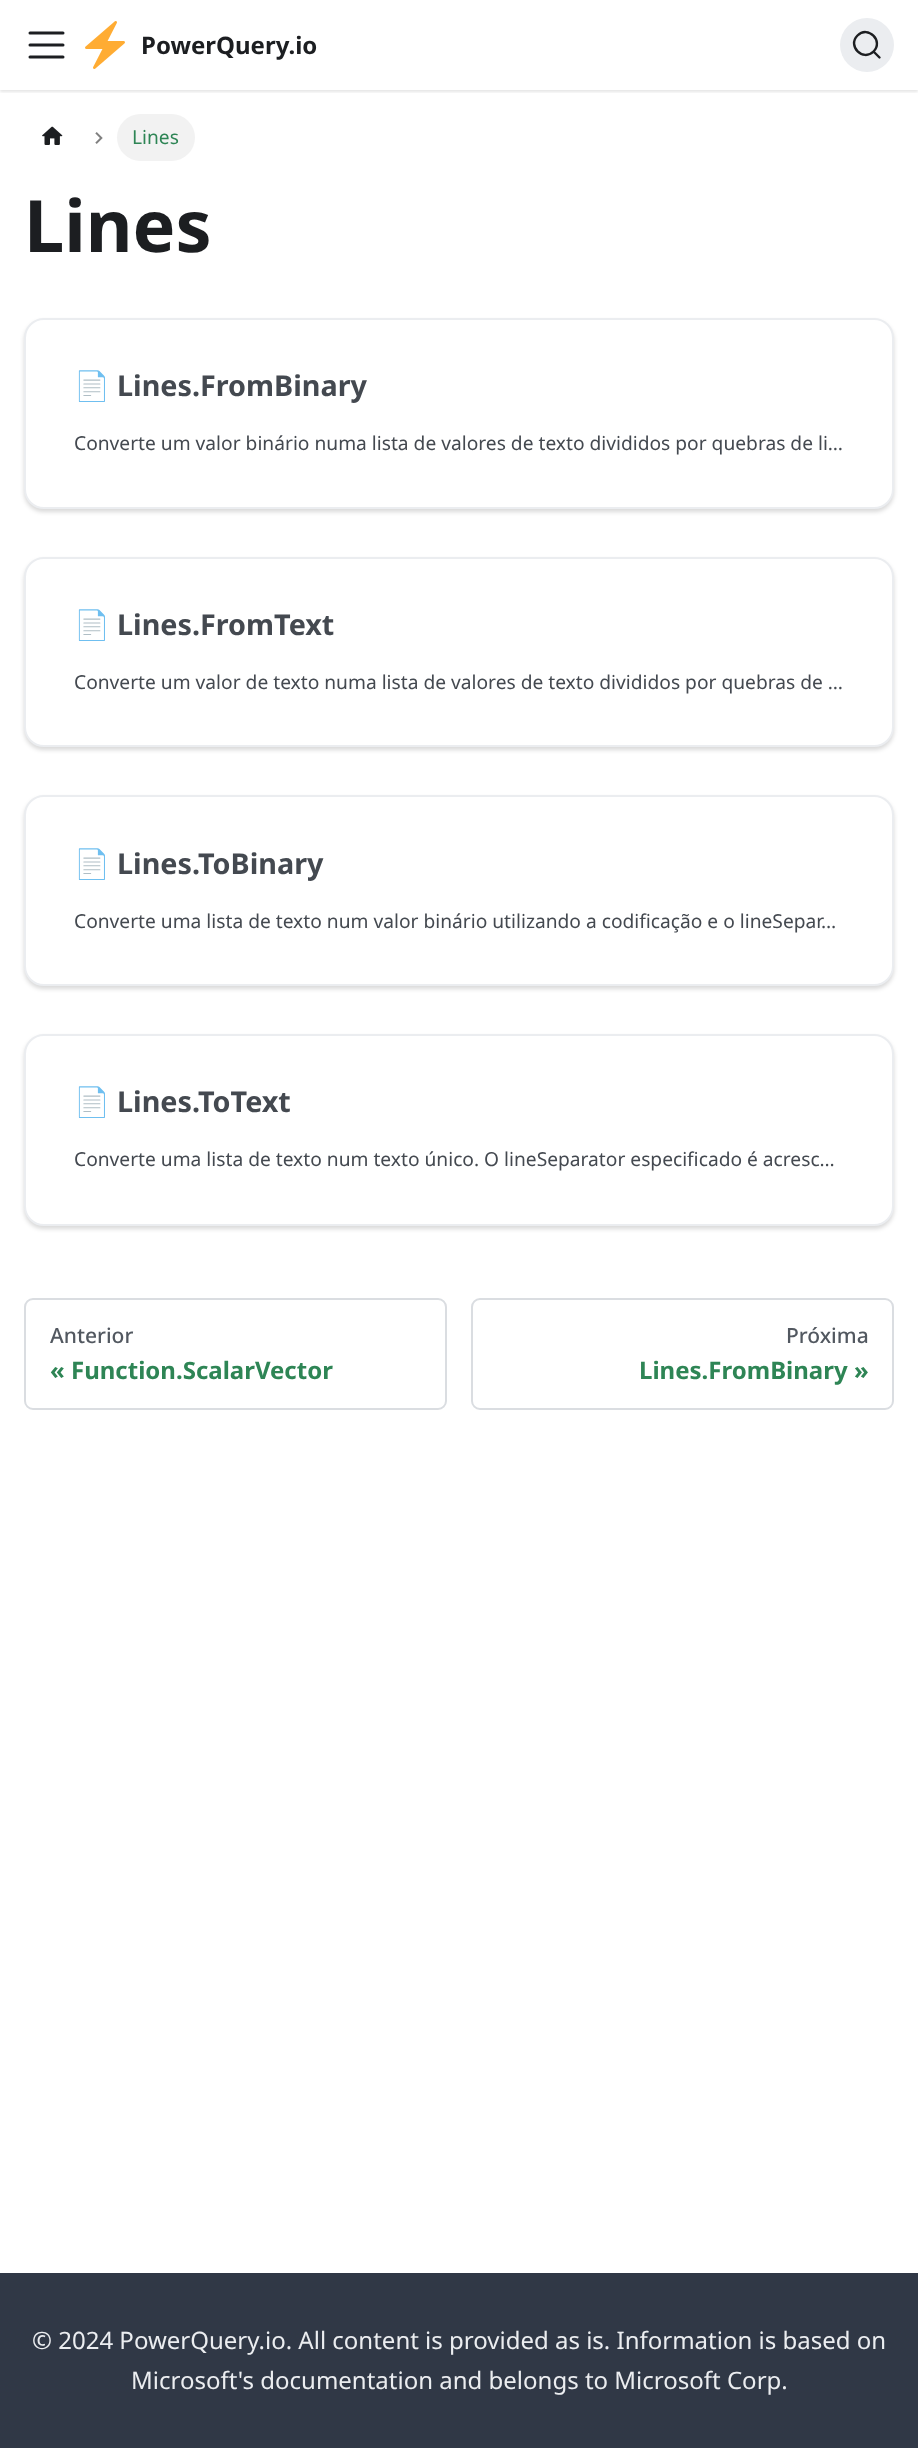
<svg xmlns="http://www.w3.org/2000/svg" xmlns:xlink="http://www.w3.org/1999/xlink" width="918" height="2448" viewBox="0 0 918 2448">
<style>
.cls-1{font:bold 24px Noto Sans;fill:#1c1e21}
.cls-2{font:19.2px Noto Sans;fill:#2e8555}
.cls-3{font:bold 72px Noto Sans;fill:#1c1e21}
.cls-4{font:bold 28.75px Noto Color Emoji;fill:#444950}
.cls-5{font:bold 28.75px Noto Sans;fill:#444950}
.cls-6{font:19.2px Noto Sans;fill:#444950}
.cls-7{font:500 21px Noto Sans;fill:#525860}
.cls-8{font:bold 24px Noto Sans;fill:#2e8555}
.cls-9{font:24px Noto Sans;fill:#ebedf0}
</style>
<defs>
<clipPath id="clip1"><rect x="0" y="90" width="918" height="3"/></clipPath>
<clipPath id="clip2"><rect x="74" y="368" width="771" height="36"/></clipPath>
<clipPath id="clip3"><rect x="74" y="606" width="771" height="36"/></clipPath>
<clipPath id="clip4"><rect x="74" y="845" width="771" height="36"/></clipPath>
<clipPath id="clip5"><rect x="74" y="1083" width="771" height="36"/></clipPath>
</defs>
<rect width="100%" height="100%" fill="#ffffff"/>
<g clip-path="url(#clip1)">
<rect fill="#000000" fill-opacity="0.1" filter="blur(1.5px)" x="0" y="2" width="918" height="90"/>
</g>
<path fill="none" stroke="#1c1e21" stroke-width="3" stroke-linecap="round" d="M30 33H63M30 45H63M30 57H63"/>
<image xlink:href="image0.png" x="85" y="21" width="40" height="48"/>
<circle fill="#ebedf0" cx="867" cy="45" r="27"/>
<path fill="none" stroke="#1c1e21" stroke-width="2.4" stroke-linecap="round" stroke-linejoin="round" d="M873.5 51.5L879.5 57.5L873.5 51.5C863 62 847 46 857.5 35.5C868 25 884 41 873.5 51.5Z"/>
<image xlink:href="image1.png" x="42" y="126" width="21" height="19"/>
<image xlink:href="image2.png" x="95" y="132" width="8" height="12"/>
<rect fill="#f2f2f2" x="117" y="114" width="78" height="47" rx="23.5"/>
<rect fill="#000000" fill-opacity="0.15" filter="blur(2px)" x="24" y="321" width="870" height="191" rx="20"/>
<rect fill="#ffffff" stroke="#ebedf0" stroke-width="2" x="25" y="319" width="868" height="189" rx="19"/>
<rect fill="#000000" fill-opacity="0.15" filter="blur(2px)" x="24" y="560" width="870" height="190" rx="20"/>
<rect fill="#ffffff" stroke="#ebedf0" stroke-width="2" x="25" y="558" width="868" height="188" rx="19"/>
<rect fill="#000000" fill-opacity="0.15" filter="blur(2px)" x="24" y="798" width="870" height="191" rx="20"/>
<rect fill="#ffffff" stroke="#ebedf0" stroke-width="2" x="25" y="796" width="868" height="189" rx="19"/>
<rect fill="#000000" fill-opacity="0.15" filter="blur(2px)" x="24" y="1037" width="870" height="192" rx="20"/>
<rect fill="#ffffff" stroke="#ebedf0" stroke-width="2" x="25" y="1035" width="868" height="190" rx="19"/>
<rect fill="none" stroke="#dadde1" stroke-width="2" x="25" y="1299" width="421" height="110" rx="8"/>
<rect fill="none" stroke="#dadde1" stroke-width="2" x="472" y="1299" width="421" height="110" rx="8"/>
<rect fill="#303846" x="0" y="2273" width="918" height="175"/>
<text class="cls-1" x="141" y="54">PowerQuery.io</text>
<text class="cls-2" x="132" y="144">Lines</text>
<text class="cls-3" x="24" y="252">Lines</text>
<g clip-path="url(#clip2)">
<text class="cls-4" x="74" y="396">📄️</text>
</g>
<text class="cls-5" x="117" y="396">Lines.FromBinary</text>
<text class="cls-6" x="74" y="450">Converte um valor binário numa lista de valores de texto divididos por quebras de li…</text>
<g clip-path="url(#clip3)">
<text class="cls-4" x="74" y="635">📄️</text>
</g>
<text class="cls-5" x="117" y="635">Lines.FromText</text>
<text class="cls-6" x="74" y="689">Converte um valor de texto numa lista de valores de texto divididos por quebras de …</text>
<g clip-path="url(#clip4)">
<text class="cls-4" x="74" y="874">📄️</text>
</g>
<text class="cls-5" x="117" y="874">Lines.ToBinary</text>
<text class="cls-6" x="74" y="928">Converte uma lista de texto num valor binário utilizando a codificação e o lineSepar…</text>
<g clip-path="url(#clip5)">
<text class="cls-4" x="74" y="1112">📄️</text>
</g>
<text class="cls-5" x="117" y="1112">Lines.ToText</text>
<text class="cls-6" x="74" y="1166">Converte uma lista de texto num texto único. O lineSeparator especificado é acresc…</text>
<text class="cls-7" x="50" y="1343">Anterior</text>
<text class="cls-8" x="50" y="1379">« Function.ScalarVector</text>
<text class="cls-7" x="786" y="1343">Próxima</text>
<text class="cls-8" x="639" y="1379">Lines.FromBinary »</text>
<text class="cls-9" x="32" y="2349">© 2024 PowerQuery.io. All content is provided as is. Information is based on</text>
<text class="cls-9" x="131" y="2389">Microsoft's documentation and belongs to Microsoft Corp.</text>
</svg>
